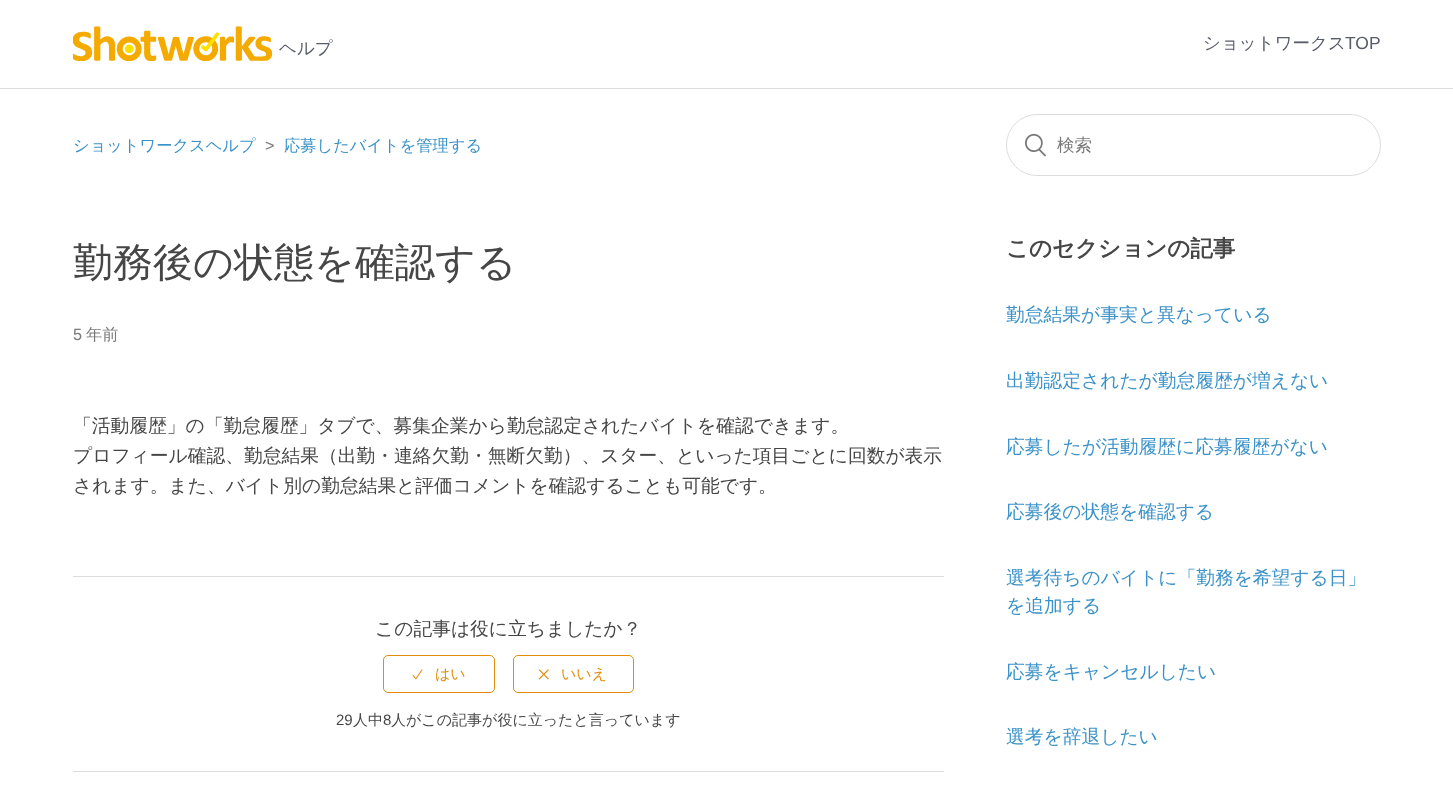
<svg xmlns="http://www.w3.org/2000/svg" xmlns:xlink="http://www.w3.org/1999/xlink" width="1453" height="791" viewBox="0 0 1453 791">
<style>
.cls-1{font:500 17.5px WenQuanYi Zen Hei;fill:#585c67}
.cls-2{font:17.5px Liberation Sans;fill:#585c67}
.cls-3{font:500 16.25px WenQuanYi Zen Hei;fill:#3b92c8}
.cls-4{font:16.25px Liberation Sans;fill:#797979}
.cls-5{font:500 17.5px WenQuanYi Zen Hei;fill:#797979}
.cls-6{font:500 40px WenQuanYi Zen Hei;fill:#464646}
.cls-7{font:500 16.25px WenQuanYi Zen Hei;fill:#797979}
.cls-8{font:500 18.75px WenQuanYi Zen Hei;fill:#464646}
.cls-9{font:500 15px WenQuanYi Zen Hei;fill:#e28c0a}
.cls-10{font:15px Liberation Sans;fill:#464646}
.cls-11{font:500 15px WenQuanYi Zen Hei;fill:#464646}
.cls-12{font:bold 22.5px WenQuanYi Zen Hei;fill:#464646}
.cls-13{font:500 18.75px WenQuanYi Zen Hei;fill:#3b92c8}
</style>
<rect width="100%" height="100%" fill="#ffffff"/>
<image xlink:href="image0.png" x="73" y="26" width="200" height="35"/>
<rect fill="#dddddd" x="0" y="88" width="1453" height="1"/>
<rect fill="none" stroke="#dddddd" x="1006.5" y="114.5" width="374" height="61" rx="30.5"/>
<image xlink:href="image1.png" x="1025" y="133" width="21" height="24"/>
<rect fill="#dddddd" x="73" y="576" width="871" height="1"/>
<rect fill="none" stroke="#e28c0a" x="383.5" y="655.5" width="111" height="37" rx="4.5"/>
<image xlink:href="image2.png" x="412" y="669" width="11" height="11"/>
<rect fill="none" stroke="#e28c0a" x="513.5" y="655.5" width="120" height="37" rx="4.5"/>
<image xlink:href="image3.png" x="538" y="669" width="11" height="11"/>
<rect fill="#dddddd" x="73" y="771" width="871" height="1"/>
<text class="cls-1" x="279" y="54">ヘルプ</text>
<text class="cls-1" x="1203" y="49">ショットワークス</text>
<text class="cls-2" x="1345" y="49">TOP</text>
<text class="cls-3" x="73" y="151">ショットワークスヘルプ</text>
<text class="cls-4" x="265" y="151">&gt;</text>
<text class="cls-3" x="284" y="151">応募したバイトを管理する</text>
<text class="cls-5" x="1057" y="151">検索</text>
<text class="cls-6" x="73" y="276">勤務後の状態を確認する</text>
<text class="cls-4" x="73" y="340">5</text>
<text class="cls-7" x="86" y="340">年前</text>
<text class="cls-8"><tspan x="73" y="432">「活動履歴」の「勤怠履歴」タブで、募集企業から勤怠認定されたバイトを確認できます。</tspan><tspan x="73" y="462">プロフィール確認、勤怠結果（出勤・連絡欠勤・無断欠勤）、スター、といった項目ごとに回数が表示</tspan><tspan x="73" y="492">されます。また、バイト別の勤怠結果と評価コメントを確認することも可能です。</tspan></text>
<text class="cls-8" x="375" y="635">この記事は役に立ちましたか？</text>
<text class="cls-9" x="435" y="679">はい</text>
<text class="cls-9" x="561" y="679">いいえ</text>
<text class="cls-10" x="336" y="725">29</text>
<text class="cls-11" x="353" y="725">人中</text>
<text class="cls-10" x="383" y="725">8</text>
<text class="cls-11" x="391" y="725">人がこの記事が役に立ったと言っています</text>
<text class="cls-12" x="1006" y="256">このセクションの記事</text>
<text class="cls-13" x="1006" y="321">勤怠結果が事実と異なっている</text>
<text class="cls-13" x="1006" y="387">出勤認定されたが勤怠履歴が増えない</text>
<text class="cls-13" x="1006" y="453">応募したが活動履歴に応募履歴がない</text>
<text class="cls-13" x="1006" y="518">応募後の状態を確認する</text>
<text class="cls-13"><tspan x="1006" y="584">選考待ちのバイトに「勤務を希望する日」</tspan><tspan x="1006" y="612">を追加する</tspan></text>
<text class="cls-13" x="1006" y="678">応募をキャンセルしたい</text>
<text class="cls-13" x="1006" y="743">選考を辞退したい</text>
</svg>
